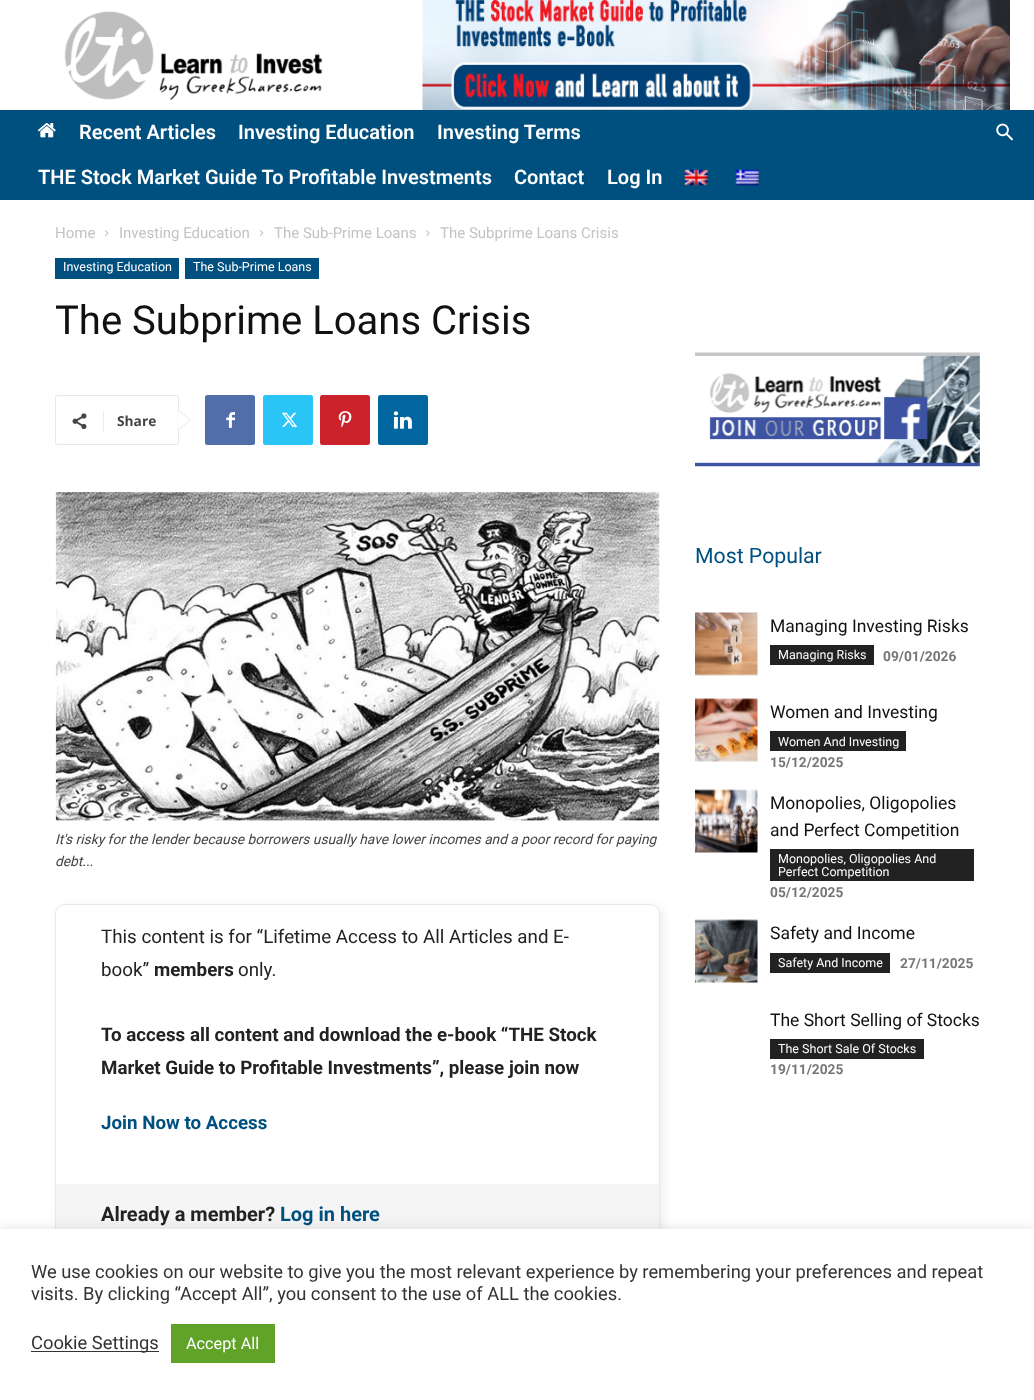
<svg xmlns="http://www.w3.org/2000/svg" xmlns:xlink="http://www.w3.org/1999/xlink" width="1034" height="1400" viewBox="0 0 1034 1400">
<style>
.cls-1{font:600 20px Roboto;fill:#ffffff}
.cls-2{font:15px Roboto;fill:#c3c3c3}
.cls-3{font:12.5px Roboto;fill:#ffffff}
.cls-4{font:40px Roboto;fill:#111111}
.cls-5{font:bold 13.75px Open Sans;fill:#444444}
.cls-6{font:italic 13.75px Roboto;fill:#444444}
.cls-7{font:18.75px Roboto;fill:#222222}
.cls-8{font:bold 18.75px Roboto;fill:#222222}
.cls-9{font:bold 18.75px Roboto;fill:#00507f}
.cls-10{font:bold 20px Roboto;fill:#222222}
.cls-11{font:bold 20px Roboto;fill:#00507f}
.cls-12{font:21.25px Roboto;fill:#00507f}
.cls-13{font:17.5px Roboto;fill:#111111}
.cls-14{font:bold 13.75px Roboto;fill:#767676}
.cls-15{font:18.33px Roboto;fill:#333333}
.cls-16{font:16.25px Roboto;fill:#ffffff}
</style>
<rect width="100%" height="100%" fill="#ffffff"/>
<image xlink:href="image0.png" x="64" y="11" width="259" height="89"/>
<image xlink:href="image1.png" x="422" y="0" width="588" height="110"/>
<rect fill="#00507f" x="0" y="110" width="1034" height="90"/>
<image xlink:href="image2.png" x="37" y="123" width="19" height="15"/>
<image xlink:href="image3.png" x="684" y="169" width="24" height="17"/>
<image xlink:href="image4.png" x="735" y="169" width="24" height="17"/>
<image xlink:href="image5.png" x="996" y="123" width="17" height="18"/>
<image xlink:href="image6.png" x="105" y="230" width="4" height="6"/>
<image xlink:href="image6.png" x="260" y="230" width="4" height="6"/>
<image xlink:href="image7.png" x="426" y="230" width="4" height="6"/>
<rect fill="#00507f" x="55" y="258" width="124" height="21"/>
<rect fill="#00507f" x="185" y="258" width="134" height="21"/>
<rect fill="none" stroke="#e9e9e9" x="55.5" y="395.5" width="123" height="49" rx="2"/>
<path fill="#e9e9e9" d="M177.5 431V409L191 420Z"/>
<image xlink:href="image8.png" x="72" y="413" width="15" height="17"/>
<rect fill="#ebebeb" x="103" y="411" width="1" height="20"/>
<path fill="#ffffff" d="M177.5 430V410L190 420Z"/>
<rect fill="#516eab" x="205" y="395" width="50" height="50" rx="2.5"/>
<image xlink:href="image9.png" x="226" y="412" width="9" height="16"/>
<rect fill="#29c5f6" x="263" y="395" width="50" height="50" rx="2.5"/>
<image xlink:href="image10.png" x="281" y="412" width="17" height="15"/>
<rect fill="#ca212a" x="320" y="395" width="50" height="50" rx="2.5"/>
<image xlink:href="image11.png" x="338" y="411" width="14" height="17"/>
<rect fill="#0266a0" x="378" y="395" width="50" height="50" rx="2.5"/>
<image xlink:href="image12.png" x="393" y="411" width="19" height="18"/>
<image xlink:href="image13.png" x="55" y="491" width="605" height="330"/>
<rect fill="#000000" fill-opacity="0.07" filter="blur(4.5px)" x="58" y="906" width="605" height="345" rx="10"/>
<rect fill="#ffffff" stroke="#e8e8e8" x="55.5" y="904.5" width="604" height="344" rx="9.5"/>
<rect fill="#000000" fill-opacity="0.04" x="56" y="1184" width="603" height="45"/>
<image xlink:href="image14.png" x="695" y="352" width="285" height="115"/>
<image xlink:href="image15.png" x="695" y="612" width="63" height="64"/>
<rect fill="#222222" x="770" y="645" width="104" height="20"/>
<image xlink:href="image16.png" x="695" y="698" width="63" height="64"/>
<rect fill="#222222" x="770" y="731" width="136" height="20"/>
<image xlink:href="image17.png" x="695" y="789" width="63" height="64"/>
<rect fill="#222222" x="770" y="849" width="204" height="32"/>
<image xlink:href="image18.png" x="695" y="919" width="63" height="64"/>
<rect fill="#222222" x="770" y="953" width="120" height="20"/>
<rect fill="#222222" x="770" y="1039" width="154" height="20"/>
<rect fill="#acabab" fill-opacity="0.3" filter="blur(6px)" x="0" y="1228" width="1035" height="171"/>
<rect fill="#ffffff" x="0" y="1229" width="1034" height="171"/>
<rect fill="#333333" x="31" y="1351" width="128" height="1"/>
<rect fill="#61a229" x="171" y="1324" width="104" height="39"/>
<text class="cls-1" x="79" y="139">Recent Articles</text>
<text class="cls-1" x="238" y="139">Investing Education</text>
<text class="cls-1" x="437" y="139">Investing Terms</text>
<text class="cls-1" x="38" y="184">THE Stock Market Guide To Profitable Investments</text>
<text class="cls-1" x="514" y="184">Contact</text>
<text class="cls-1" x="607" y="184">Log In</text>
<text class="cls-2" x="55" y="238">Home</text>
<text class="cls-2" x="119" y="238">Investing Education</text>
<text class="cls-2" x="274" y="238">The Sub-Prime Loans</text>
<text class="cls-2" x="440" y="238">The Subprime Loans Crisis</text>
<text class="cls-3" x="63" y="271">Investing Education</text>
<text class="cls-3" x="193" y="271">The Sub-Prime Loans</text>
<text class="cls-4" x="55" y="334">The Subprime Loans Crisis</text>
<text class="cls-5" x="117" y="426">Share</text>
<text class="cls-6"><tspan x="55" y="844">It's risky for the lender because borrowers usually have lower incomes and a poor record for paying</tspan><tspan x="55" y="866">debt...</tspan></text>
<text class="cls-7"><tspan x="101" y="943">This content is for “Lifetime Access to All Articles and E-</tspan><tspan x="101" y="976">book”</tspan></text>
<text class="cls-8" x="154" y="976">members</text>
<text class="cls-7" x="238" y="976">only.</text>
<text class="cls-8"><tspan x="101" y="1041">To access all content and download the e-book “THE Stock</tspan><tspan x="101" y="1074">Market Guide to Profitable Investments”, please join now</tspan></text>
<text class="cls-9" x="101" y="1129">Join Now to Access</text>
<text class="cls-10" x="101" y="1221">Already a member?</text>
<text class="cls-11" x="280" y="1221">Log in here</text>
<text class="cls-12" x="695" y="563">Most Popular</text>
<text class="cls-13" x="770" y="632">Managing Investing Risks</text>
<text class="cls-3" x="778" y="659">Managing Risks</text>
<text class="cls-14" x="883" y="661">09/01/2026</text>
<text class="cls-13" x="770" y="718">Women and Investing</text>
<text class="cls-3" x="778" y="746">Women And Investing</text>
<text class="cls-14" x="770" y="767">15/12/2025</text>
<text class="cls-13"><tspan x="770" y="809">Monopolies, Oligopolies</tspan><tspan x="770" y="836">and Perfect Competition</tspan></text>
<text class="cls-3"><tspan x="778" y="863">Monopolies, Oligopolies And</tspan><tspan x="778" y="876">Perfect Competition</tspan></text>
<text class="cls-14" x="770" y="897">05/12/2025</text>
<text class="cls-13" x="770" y="939">Safety and Income</text>
<text class="cls-3" x="778" y="967">Safety And Income</text>
<text class="cls-14" x="900" y="968">27/11/2025</text>
<text class="cls-13" x="770" y="1026">The Short Selling of Stocks</text>
<text class="cls-3" x="778" y="1053">The Short Sale Of Stocks</text>
<text class="cls-14" x="770" y="1074">19/11/2025</text>
<text class="cls-15"><tspan x="31" y="1278">We use cookies on our website to give you the most relevant experience by remembering your preferences and repeat</tspan><tspan x="31" y="1300">visits. By clicking “Accept All”, you consent to the use of ALL the cookies.</tspan></text>
<text class="cls-15" x="31" y="1349">Cookie Settings</text>
<text class="cls-16" x="186" y="1349">Accept All</text>
</svg>
